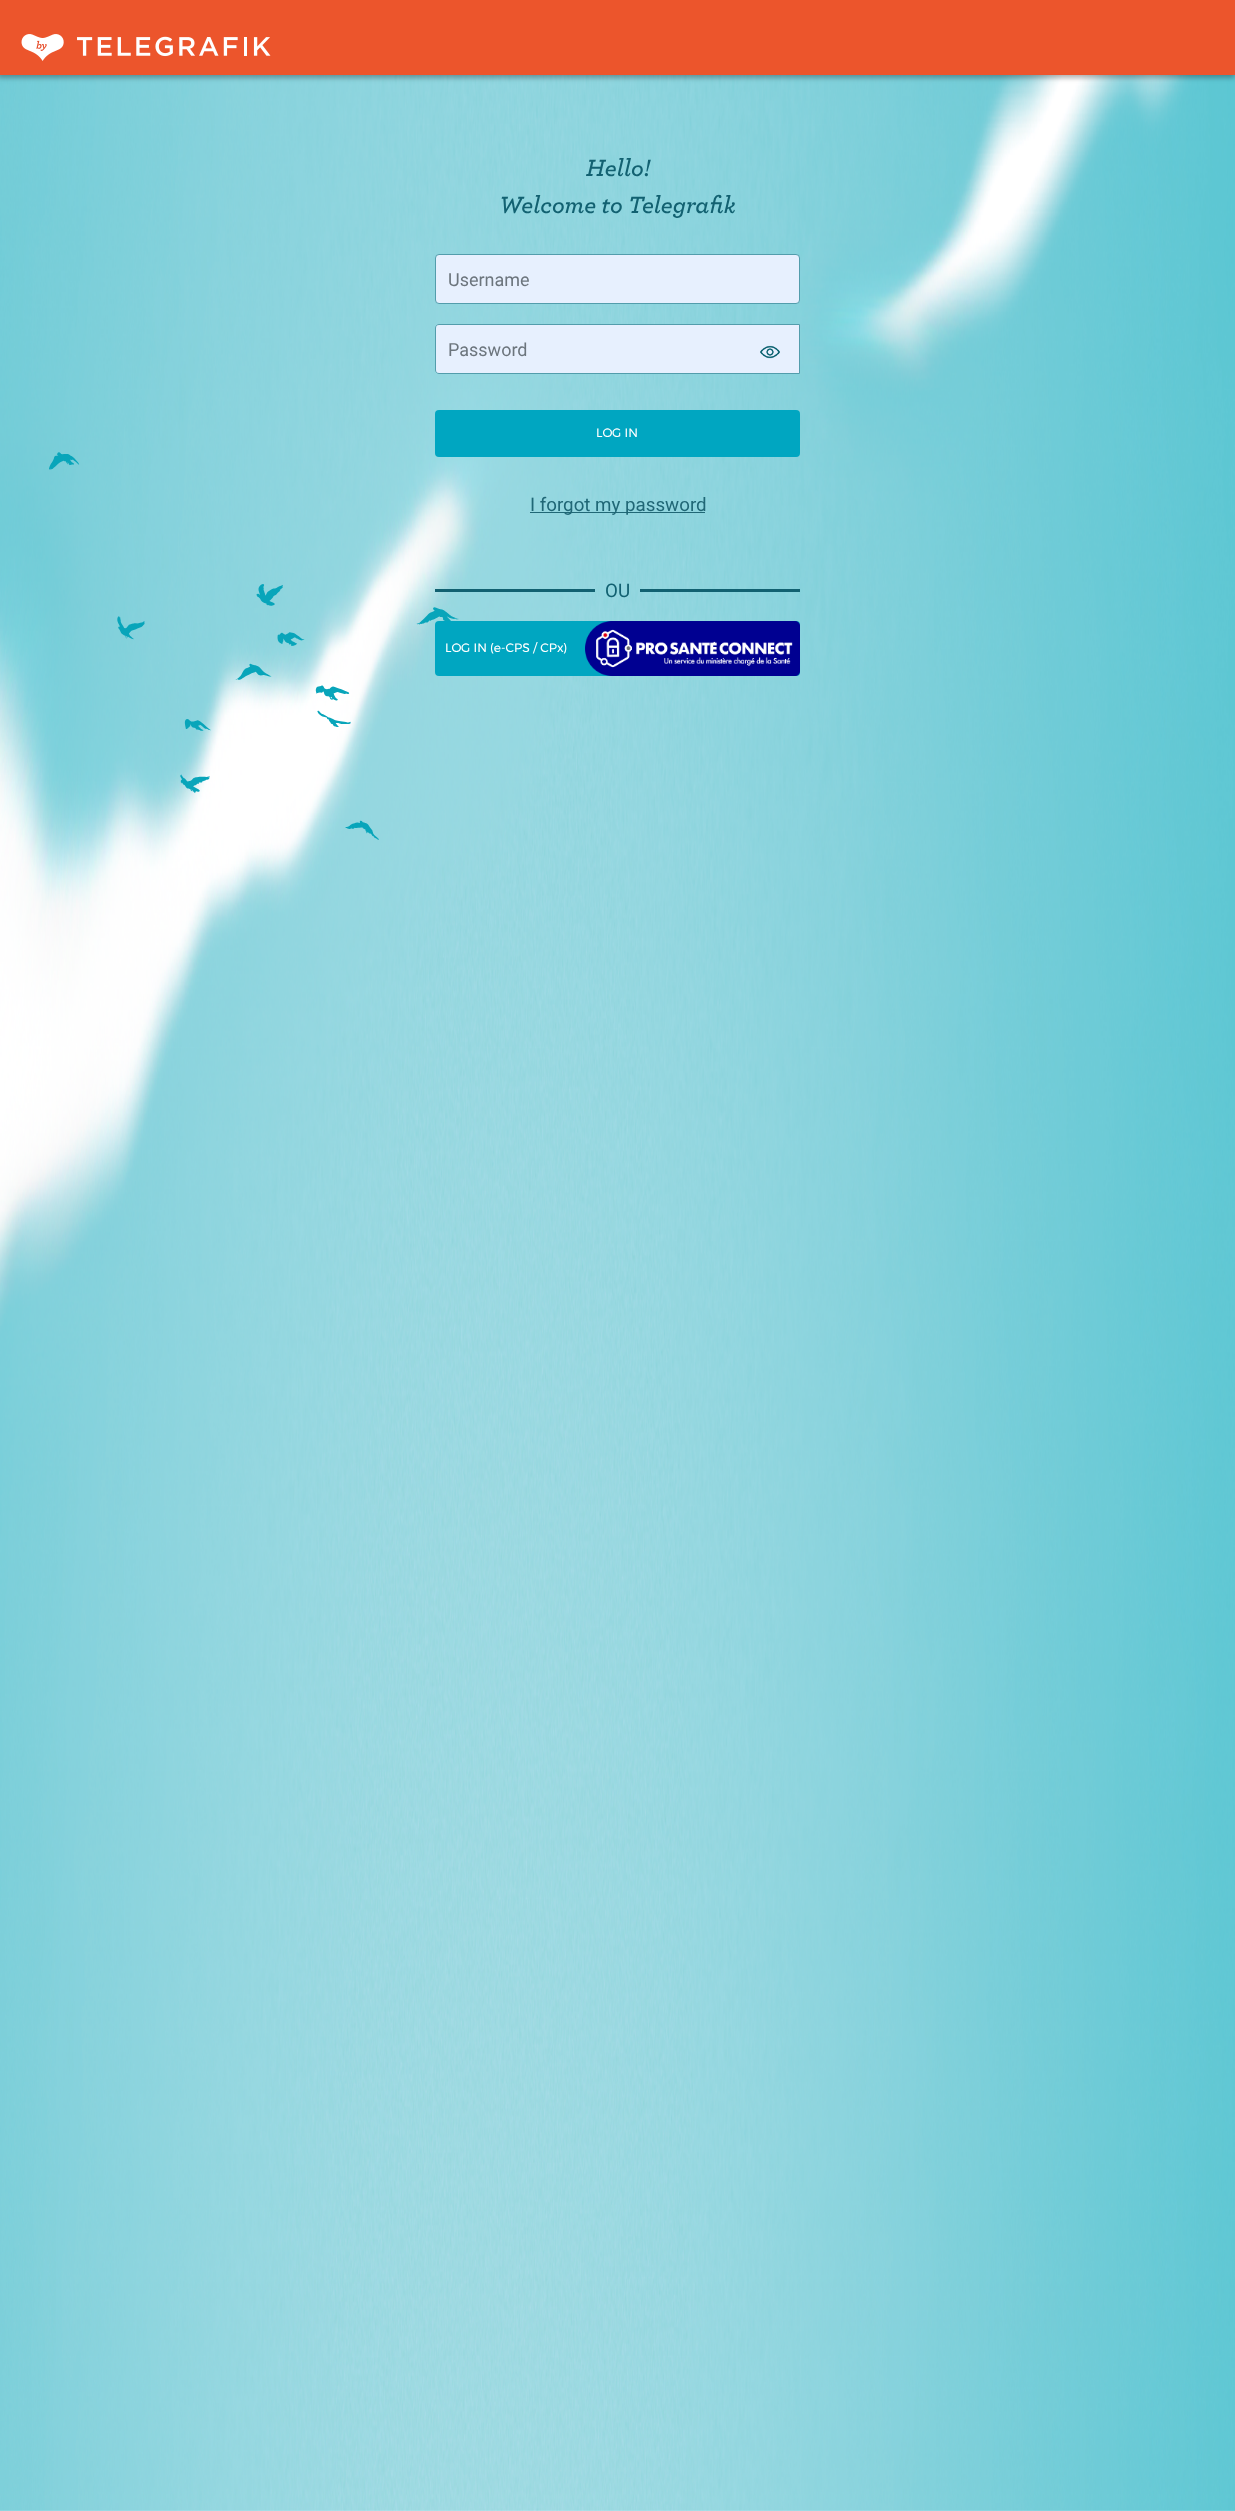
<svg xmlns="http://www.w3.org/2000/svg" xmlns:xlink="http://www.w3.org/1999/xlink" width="1235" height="2511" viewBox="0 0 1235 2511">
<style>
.cls-1{font:italic 600 24.75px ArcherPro;fill:#126171}
.cls-2{font:18px Roboto;fill:#6c757d}
.cls-3{font:12.25px Montserrat;fill:#ffffff}
.cls-4{font:18.75px Roboto;fill:#206776}
.cls-5{font:18.75px Roboto;fill:#126171}
</style>
<rect width="100%" height="100%" fill="#ffffff"/>
<image xlink:href="image0.png" x="0" y="75" width="1235" height="2436"/>
<rect fill="#000000" fill-opacity="0.3" filter="blur(2.5px)" x="-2" y="1" width="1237" height="77"/>
<rect fill="#ec552c" x="0" y="0" width="1235" height="75"/>
<image xlink:href="image1.png" x="21" y="34" width="250" height="27"/>
<rect fill="#00a6c1" x="435" y="410" width="365" height="47" rx="4"/>
<rect fill="#126171" x="435" y="589" width="160" height="3"/>
<image xlink:href="image2.png" x="49" y="452" width="410" height="388"/>
<rect fill="#e7f0fe" stroke="#539dac" x="435.5" y="254.5" width="364" height="49" rx="3.5"/>
<path fill="#e7f0fe" stroke="#539dac" d="M439 324.5H799.5V373.5H439C437 373.5 435.5 372 435.5 370V328C435.5 326 437 324.5 439 324.5Z"/>
<image xlink:href="image3.png" x="760" y="345" width="20" height="14"/>
<rect fill="#206776" x="530" y="512" width="175" height="1"/>
<rect fill="#126171" x="640" y="589" width="160" height="3"/>
<rect fill="#00a6c1" x="435" y="621" width="365" height="55" rx="4"/>
<image xlink:href="image4.png" x="585" y="621" width="215" height="55"/>
<text class="cls-1" x="586" y="176">Hello!</text>
<text class="cls-1" x="499" y="213">Welcome to Telegrafik</text>
<text class="cls-2" x="448" y="286">Username</text>
<text class="cls-2" x="448" y="356">Password</text>
<text class="cls-3" x="596" y="437">LOG IN</text>
<text class="cls-4" x="530" y="511">I forgot my password</text>
<text class="cls-5" x="605" y="597">OU</text>
<text class="cls-3" x="445" y="652">LOG IN (e-CPS / CPx)</text>
</svg>
